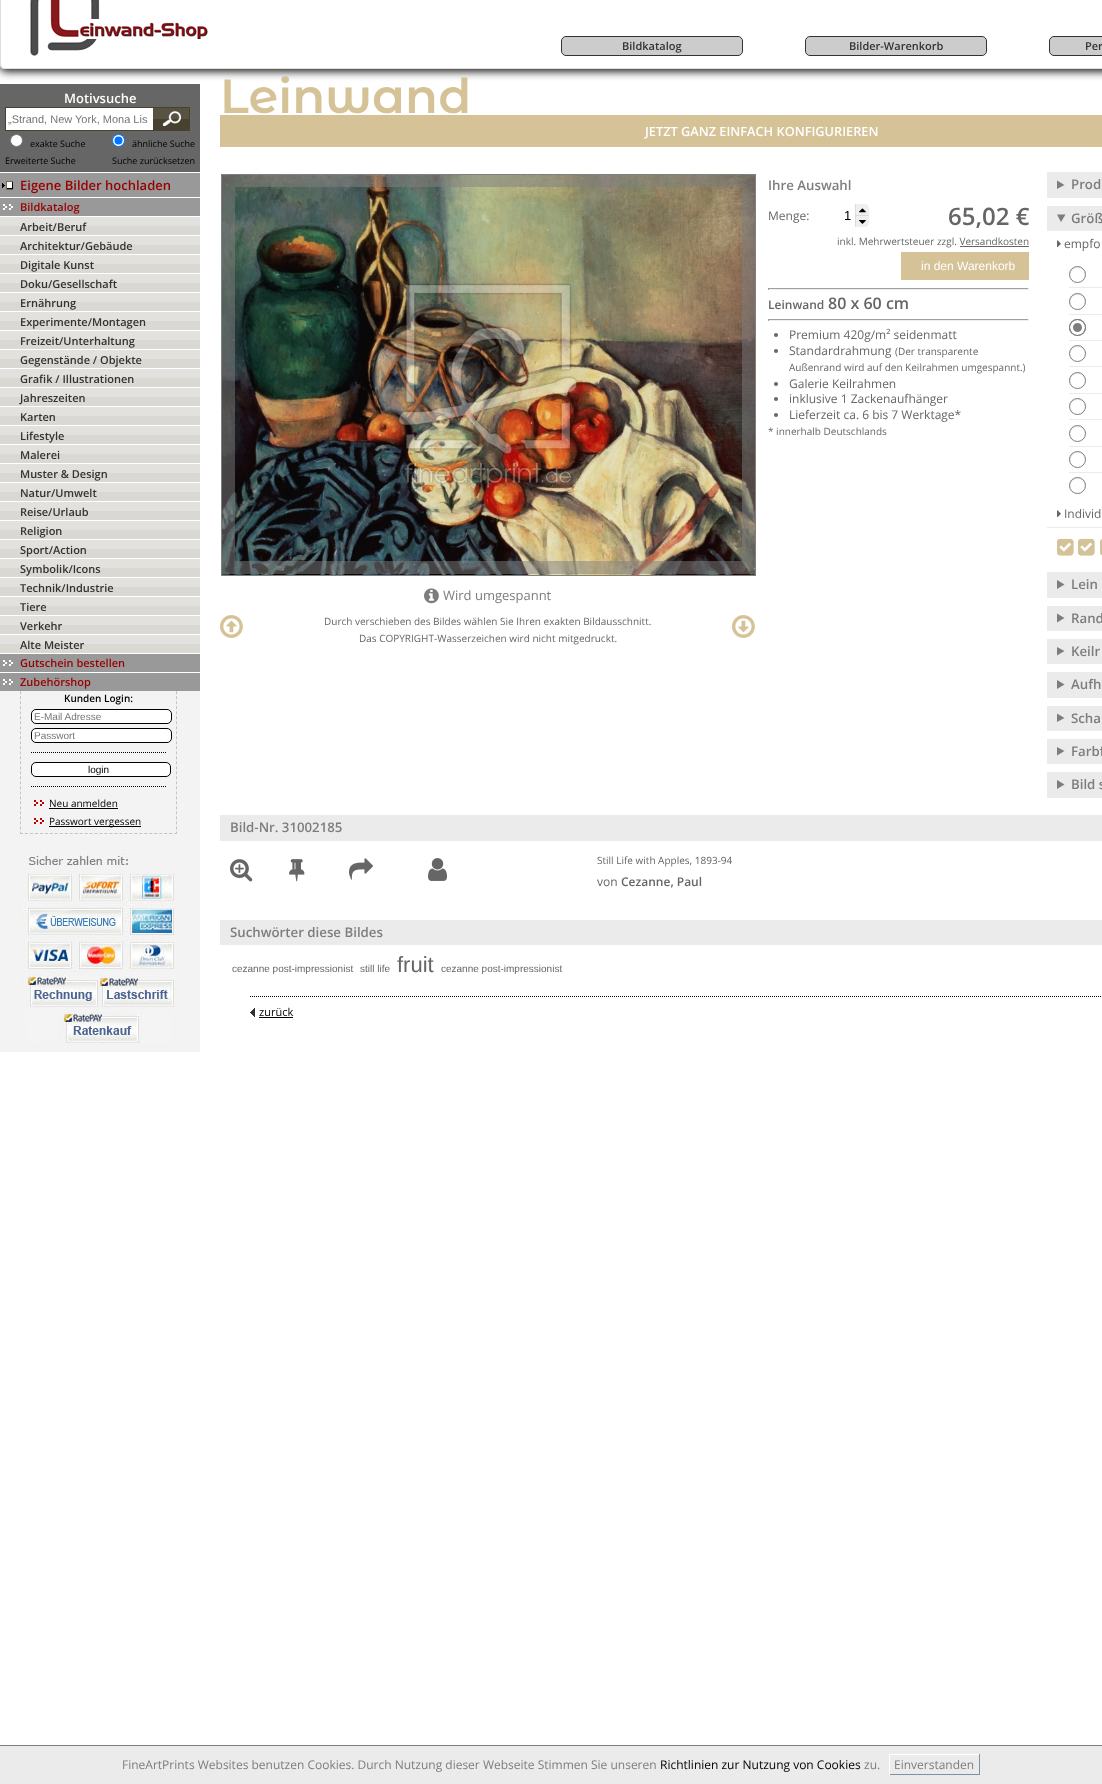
<svg xmlns="http://www.w3.org/2000/svg" xmlns:xlink="http://www.w3.org/1999/xlink" width="1102" height="1784" viewBox="0 0 1102 1784">
<style>
.cls-1{font:600 11px Open Sans;fill:#333333}
.cls-2{font:600 13px Open Sans;fill:#ffffff}
.cls-3{font:11px Liberation Sans;fill:#757575}
.cls-4{font:9px Open Sans;fill:#000000}
.cls-5{font:600 13px Open Sans;fill:#990000}
.cls-6{font:600 11px Open Sans;fill:#990000}
.cls-7{font:600 10px Open Sans;fill:#000000}
.cls-8{font:10px Liberation Sans;fill:#757575}
.cls-9{font:10px Liberation Sans;fill:#000000}
.cls-10{font:10px Open Sans;fill:#000000}
.cls-11{font:600 48px Montserrat Alternates;fill:#d5c297}
.cls-12{font:600 12.75px Open Sans;fill:#ffffff}
.cls-13{font:600 13.25px Open Sans;fill:#7d7d7d}
.cls-14{font:12px Open Sans;fill:#666666}
.cls-15{font:13px Liberation Sans;fill:#000000}
.cls-16{font:600 24px Open Sans;fill:#666666}
.cls-17{font:10px Open Sans;fill:#666666}
.cls-18{font:12px Liberation Sans;fill:#ffffff}
.cls-19{font:600 12px Open Sans;fill:#666666}
.cls-20{font:600 16px Open Sans;fill:#666666}
.cls-21{font:13px Open Sans;fill:#7d7d7d}
.cls-22{font:10px Liberation Sans;fill:#666666}
.cls-23{font:22px Liberation Sans;fill:#666666}
.cls-24{font:11px Open Sans;fill:#000000}
.cls-25{font:12px Open Sans;fill:#7d7d7d}
.cls-26{font:12px Open Sans;fill:#000000}
</style>
<defs>
<clipPath id="clip1"><path d="M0 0H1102V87H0ZM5-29H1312C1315-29 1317-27 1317-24V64C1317 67 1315 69 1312 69H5C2 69 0 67 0 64V-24C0-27 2-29 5-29Z" clip-rule="evenodd"/></clipPath>
<clipPath id="clip2"><rect x="222" y="175" width="533" height="400"/></clipPath>
</defs>
<rect width="100%" height="100%" fill="#ffffff"/>
<g clip-path="url(#clip1)">
<rect fill="#000000" filter="blur(5px)" x="0" y="-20" width="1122" height="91" rx="5"/>
</g>
<rect fill="none" stroke="#e0ded9" x="0.5" y="-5.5" width="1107" height="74" rx="4.5"/>
<image xlink:href="image0.png" x="30" y="0" width="178" height="56"/>
<rect fill="#cccccc" stroke="#333333" x="561.5" y="36.5" width="181" height="19" rx="4.5"/>
<rect fill="#cccccc" stroke="#333333" x="805.5" y="36.5" width="181" height="19" rx="4.5"/>
<rect fill="#cccccc" stroke="#333333" x="1049.5" y="36.5" width="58" height="19" rx="4.5"/>
<rect fill="#f3f3f3" x="0" y="691" width="200" height="361"/>
<path fill="none" stroke="#c4c4c4" stroke-dasharray="3 2.01" d="M176.5 100V834"/>
<path fill="none" stroke="#c4c4c4" stroke-dasharray="3 1.97" d="M20 833.5H177"/>
<path fill="none" stroke="#c4c4c4" stroke-dasharray="3 2.01" d="M20.5 100V834"/>
<rect fill="#666666" x="0" y="84" width="200" height="88"/>
<rect fill="#ffffff" x="6" y="108" width="147" height="22"/>
<rect fill="none" stroke="#47412f" x="5.5" y="107.5" width="150" height="23"/>
<rect fill="#47412f" x="153" y="107" width="37" height="1"/>
<rect fill="#585242" x="153" y="108" width="36" height="11"/>
<rect fill="#47412f" x="153" y="119" width="36" height="11"/>
<rect fill="#47412f" x="189" y="107" width="1" height="24"/>
<rect fill="#47412f" x="153" y="130" width="37" height="1"/>
<image xlink:href="image1.png" x="162" y="111" width="19" height="15"/>
<circle fill="#ffffff" stroke="#767676" cx="16.5" cy="140.5" r="6"/>
<circle fill="#ffffff" stroke="#0075ff" cx="118.5" cy="140.5" r="6"/>
<circle fill="#0075ff" cx="118.5" cy="140.5" r="4"/>
<rect fill="#999999" x="0" y="173" width="200" height="24"/>
<rect fill="#ffffff" x="20" y="172" width="157" height="1"/>
<image xlink:href="image2.png" x="2" y="181" width="11" height="9"/>
<rect fill="#999999" x="0" y="198" width="200" height="18"/>
<rect fill="#ffffff" x="20" y="197" width="157" height="1"/>
<image xlink:href="image3.png" x="3" y="204" width="10" height="6"/>
<rect fill="#e2e1de" x="0" y="217" width="200" height="9"/>
<rect fill="#d9d8d3" x="0" y="226" width="200" height="9"/>
<rect fill="#ffffff" x="20" y="216" width="157" height="1"/>
<rect fill="#e2e1de" x="0" y="236" width="200" height="9"/>
<rect fill="#d9d8d3" x="0" y="245" width="200" height="9"/>
<rect fill="#ffffff" x="20" y="235" width="157" height="1"/>
<rect fill="#e2e1de" x="0" y="255" width="200" height="9"/>
<rect fill="#d9d8d3" x="0" y="264" width="200" height="9"/>
<rect fill="#e2e1de" x="0" y="274" width="200" height="9"/>
<rect fill="#d9d8d3" x="0" y="283" width="200" height="9"/>
<rect fill="#ffffff" x="20" y="273" width="157" height="1"/>
<rect fill="#e2e1de" x="0" y="293" width="200" height="9"/>
<rect fill="#d9d8d3" x="0" y="302" width="200" height="9"/>
<rect fill="#ffffff" x="20" y="292" width="157" height="1"/>
<rect fill="#e2e1de" x="0" y="312" width="200" height="9"/>
<rect fill="#d9d8d3" x="0" y="321" width="200" height="9"/>
<rect fill="#ffffff" x="20" y="311" width="157" height="1"/>
<rect fill="#e2e1de" x="0" y="331" width="200" height="9"/>
<rect fill="#d9d8d3" x="0" y="340" width="200" height="9"/>
<rect fill="#ffffff" x="20" y="330" width="157" height="1"/>
<rect fill="#e2e1de" x="0" y="350" width="200" height="9"/>
<rect fill="#d9d8d3" x="0" y="359" width="200" height="9"/>
<rect fill="#e2e1de" x="0" y="369" width="200" height="9"/>
<rect fill="#d9d8d3" x="0" y="378" width="200" height="9"/>
<rect fill="#ffffff" x="20" y="368" width="157" height="1"/>
<rect fill="#e2e1de" x="0" y="388" width="200" height="9"/>
<rect fill="#d9d8d3" x="0" y="397" width="200" height="9"/>
<rect fill="#ffffff" x="20" y="387" width="157" height="1"/>
<rect fill="#e2e1de" x="0" y="407" width="200" height="9"/>
<rect fill="#d9d8d3" x="0" y="416" width="200" height="9"/>
<rect fill="#ffffff" x="20" y="406" width="157" height="1"/>
<rect fill="#e2e1de" x="0" y="426" width="200" height="9"/>
<rect fill="#d9d8d3" x="0" y="435" width="200" height="9"/>
<rect fill="#ffffff" x="20" y="425" width="157" height="1"/>
<rect fill="#e2e1de" x="0" y="445" width="200" height="9"/>
<rect fill="#d9d8d3" x="0" y="454" width="200" height="9"/>
<rect fill="#e2e1de" x="0" y="464" width="200" height="9"/>
<rect fill="#d9d8d3" x="0" y="473" width="200" height="9"/>
<rect fill="#ffffff" x="20" y="463" width="157" height="1"/>
<rect fill="#e2e1de" x="0" y="483" width="200" height="9"/>
<rect fill="#d9d8d3" x="0" y="492" width="200" height="9"/>
<rect fill="#ffffff" x="20" y="482" width="157" height="1"/>
<rect fill="#e2e1de" x="0" y="502" width="200" height="9"/>
<rect fill="#d9d8d3" x="0" y="511" width="200" height="9"/>
<rect fill="#ffffff" x="20" y="501" width="157" height="1"/>
<rect fill="#e2e1de" x="0" y="521" width="200" height="9"/>
<rect fill="#d9d8d3" x="0" y="530" width="200" height="9"/>
<rect fill="#ffffff" x="20" y="520" width="157" height="1"/>
<rect fill="#e2e1de" x="0" y="540" width="200" height="9"/>
<rect fill="#d9d8d3" x="0" y="549" width="200" height="9"/>
<rect fill="#e2e1de" x="0" y="559" width="200" height="9"/>
<rect fill="#d9d8d3" x="0" y="568" width="200" height="9"/>
<rect fill="#ffffff" x="20" y="558" width="157" height="1"/>
<rect fill="#e2e1de" x="0" y="578" width="200" height="9"/>
<rect fill="#d9d8d3" x="0" y="587" width="200" height="9"/>
<rect fill="#ffffff" x="20" y="577" width="157" height="1"/>
<rect fill="#e2e1de" x="0" y="597" width="200" height="9"/>
<rect fill="#d9d8d3" x="0" y="606" width="200" height="9"/>
<rect fill="#ffffff" x="20" y="596" width="157" height="1"/>
<rect fill="#e2e1de" x="0" y="616" width="200" height="9"/>
<rect fill="#d9d8d3" x="0" y="625" width="200" height="9"/>
<rect fill="#e2e1de" x="0" y="635" width="200" height="9"/>
<rect fill="#d9d8d3" x="0" y="644" width="200" height="9"/>
<rect fill="#ffffff" x="20" y="634" width="157" height="1"/>
<rect fill="#999999" x="0" y="654" width="200" height="18"/>
<rect fill="#ffffff" x="20" y="653" width="157" height="1"/>
<image xlink:href="image3.png" x="3" y="660" width="10" height="6"/>
<rect fill="#999999" x="0" y="673" width="200" height="18"/>
<rect fill="#ffffff" x="20" y="672" width="157" height="1"/>
<image xlink:href="image3.png" x="3" y="679" width="10" height="6"/>
<rect fill="#ffffff" stroke="#000000" x="31.5" y="709.5" width="140" height="14" rx="4.5"/>
<rect fill="#ffffff" stroke="#000000" x="31.5" y="728.5" width="140" height="14" rx="4.5"/>
<path fill="none" stroke="#000000" stroke-dasharray="1 1" d="M31 752.5H166"/>
<rect fill="#ffffff" stroke="#000000" x="31.5" y="762.5" width="139" height="14" rx="4.5"/>
<path fill="none" stroke="#000000" stroke-dasharray="1 1" d="M31 786.5H166"/>
<image xlink:href="image4.png" x="34" y="800" width="10" height="6"/>
<rect fill="#000000" x="49" y="808" width="69" height="1"/>
<image xlink:href="image4.png" x="34" y="818" width="10" height="6"/>
<rect fill="#000000" x="49" y="826" width="92" height="1"/>
<image xlink:href="image5.png" x="22" y="850" width="152" height="193"/>
<rect fill="#d5c297" x="220" y="115" width="882" height="32"/>
<rect fill="#dcdcdc" x="855" y="204" width="1" height="23"/>
<path fill="#efefef" d="M856 204H865C867 204 869 206 869 208V215H856Z"/>
<image xlink:href="image6.png" x="859" y="208" width="7" height="5"/>
<path fill="#efefef" d="M856 215H869V223C869 225 867 227 865 227H856Z"/>
<rect fill="#dcdcdc" x="856" y="215" width="13" height="1"/>
<image xlink:href="image7.png" x="859" y="220" width="7" height="4"/>
<rect fill="#666666" x="960" y="246" width="69" height="1"/>
<rect fill="#d5c297" x="901" y="252" width="128" height="28"/>
<rect fill="#9f9f9f" x="768" y="288" width="261" height="1"/>
<rect fill="#eeeeee" x="1028" y="288" width="1" height="2"/>
<rect fill="#eeeeee" x="768" y="289" width="261" height="1"/>
<rect fill="#9f9f9f" x="768" y="288" width="1" height="2"/>
<rect fill="#9f9f9f" x="768" y="319" width="261" height="1"/>
<rect fill="#eeeeee" x="1028" y="319" width="1" height="2"/>
<rect fill="#eeeeee" x="768" y="320" width="261" height="1"/>
<rect fill="#9f9f9f" x="768" y="319" width="1" height="2"/>
<circle fill="#666666" cx="776" cy="335" r="2"/>
<circle fill="#666666" cx="776" cy="351" r="2"/>
<circle fill="#666666" cx="776" cy="384" r="2"/>
<circle fill="#666666" cx="776" cy="399" r="2"/>
<circle fill="#666666" cx="776" cy="415" r="2"/>
<rect fill="none" stroke="#808080" x="221.5" y="174.5" width="534" height="401"/>
<image xlink:href="image8.png" x="222" y="175" width="533" height="400"/>
<g clip-path="url(#clip2)">
<rect fill="none" stroke="#808080" stroke-opacity="0.5" stroke-width="13" x="228.5" y="180.5" width="520" height="387"/>
</g>
<image xlink:href="image9.png" x="424" y="588" width="15" height="16"/>
<image xlink:href="image10.png" x="220" y="615" width="23" height="23"/>
<image xlink:href="image11.png" x="732" y="615" width="23" height="23"/>
<rect fill="#ebebeb" x="1047" y="172" width="55" height="26"/>
<path fill="#7d7d7d" d="M1057 180.5L1064.5 185L1057 189Z"/>
<rect fill="#ebebeb" x="1047" y="206" width="55" height="25"/>
<path fill="#7d7d7d" d="M1057 214.5H1065.5L1061 222Z"/>
<rect fill="#ebebeb" x="1047" y="527" width="55" height="1"/>
<image xlink:href="image12.png" x="1057" y="240" width="4" height="8"/>
<rect fill="#ebebeb" x="1069" y="287" width="33" height="1"/>
<path fill="#e6e6e6" d="M1078 268C1083 268 1085 272.5 1084.5 276.5C1085.5 274.5 1085 272 1083.5 270.5C1078.5 262.5 1066.5 270 1071 278C1069.5 273.5 1072 268 1078 268Z"/>
<circle fill="none" stroke="#7d7d7d" cx="1077.5" cy="274.5" r="8"/>
<rect fill="#ebebeb" x="1069" y="314" width="33" height="1"/>
<path fill="#e6e6e6" d="M1078 295C1083 295 1085 299.5 1084.5 303.5C1085.5 301.5 1085 299 1083.5 297.5C1078.5 289.5 1066.5 297 1071 305C1069.5 300.5 1072 295 1078 295Z"/>
<circle fill="none" stroke="#7d7d7d" cx="1077.5" cy="301.5" r="8"/>
<rect fill="#ebebeb" x="1069" y="340" width="33" height="1"/>
<circle fill="#7d7d7d" cx="1077.5" cy="327.5" r="8.5"/>
<circle fill="none" stroke="#ffffff" stroke-width="3" cx="1077.5" cy="327.5" r="6"/>
<circle fill="none" stroke="#7d7d7d" cx="1077.5" cy="327.5" r="8"/>
<rect fill="#ebebeb" x="1069" y="366" width="33" height="1"/>
<path fill="#e6e6e6" d="M1078 347C1083 347 1085 351.5 1084.5 355.5C1085.5 353.5 1085 351 1083.5 349.5C1078.5 341.5 1066.5 349 1071 357C1069.5 352.5 1072 347 1078 347Z"/>
<circle fill="none" stroke="#7d7d7d" cx="1077.5" cy="353.5" r="8"/>
<rect fill="#ebebeb" x="1069" y="393" width="33" height="1"/>
<path fill="#e6e6e6" d="M1078 374C1083 374 1085 378.5 1084.5 382.5C1085.5 380.5 1085 378 1083.5 376.5C1078.5 368.5 1066.5 376 1071 384C1069.5 379.5 1072 374 1078 374Z"/>
<circle fill="none" stroke="#7d7d7d" cx="1077.5" cy="380.5" r="8"/>
<rect fill="#ebebeb" x="1069" y="419" width="33" height="1"/>
<path fill="#e6e6e6" d="M1078 400C1083 400 1085 404.5 1084.5 408.5C1085.5 406.5 1085 404 1083.5 402.5C1078.5 394.5 1066.5 402 1071 410C1069.5 405.5 1072 400 1078 400Z"/>
<circle fill="none" stroke="#7d7d7d" cx="1077.5" cy="406.5" r="8"/>
<rect fill="#ebebeb" x="1069" y="446" width="33" height="1"/>
<path fill="#e6e6e6" d="M1078 427C1083 427 1085 431.5 1084.5 435.5C1085.5 433.5 1085 431 1083.5 429.5C1078.5 421.5 1066.5 429 1071 437C1069.5 432.5 1072 427 1078 427Z"/>
<circle fill="none" stroke="#7d7d7d" cx="1077.5" cy="433.5" r="8"/>
<rect fill="#ebebeb" x="1069" y="472" width="33" height="1"/>
<path fill="#e6e6e6" d="M1078 453C1083 453 1085 457.5 1084.5 461.5C1085.5 459.5 1085 457 1083.5 455.5C1078.5 447.5 1066.5 455 1071 463C1069.5 458.5 1072 453 1078 453Z"/>
<circle fill="none" stroke="#7d7d7d" cx="1077.5" cy="459.5" r="8"/>
<path fill="#e6e6e6" d="M1078 479C1083 479 1085 483.5 1084.5 487.5C1085.5 485.5 1085 483 1083.5 481.5C1078.5 473.5 1066.5 481 1071 489C1069.5 484.5 1072 479 1078 479Z"/>
<circle fill="none" stroke="#7d7d7d" cx="1077.5" cy="485.5" r="8"/>
<image xlink:href="image12.png" x="1057" y="510" width="4" height="8"/>
<image xlink:href="image15.png" x="1057" y="539" width="17" height="17"/>
<image xlink:href="image13.png" x="1057" y="538" width="17" height="18"/>
<image xlink:href="image15.png" x="1078" y="539" width="17" height="17"/>
<image xlink:href="image13.png" x="1078" y="538" width="17" height="18"/>
<image xlink:href="image16.png" x="1100" y="539" width="2" height="16"/>
<image xlink:href="image14.png" x="1100" y="539" width="2" height="16"/>
<rect fill="#ebebeb" x="1047" y="572" width="55" height="26"/>
<path fill="#7d7d7d" d="M1057 580L1064.5 584.5L1057 589Z"/>
<rect fill="#ebebeb" x="1047" y="606" width="55" height="25"/>
<path fill="#7d7d7d" d="M1057 613.5L1064.5 618L1057 622.5Z"/>
<rect fill="#ebebeb" x="1047" y="639" width="55" height="25"/>
<path fill="#7d7d7d" d="M1057 647L1064.5 651L1057 655.5Z"/>
<rect fill="#ebebeb" x="1047" y="672" width="55" height="26"/>
<path fill="#7d7d7d" d="M1057 680L1064.5 684.5L1057 689Z"/>
<rect fill="#ebebeb" x="1047" y="706" width="55" height="25"/>
<path fill="#7d7d7d" d="M1057 713.5L1064.5 718L1057 722Z"/>
<rect fill="#ebebeb" x="1047" y="739" width="55" height="25"/>
<path fill="#7d7d7d" d="M1057 747L1064.5 751L1057 755.5Z"/>
<rect fill="#ebebeb" x="1047" y="772" width="55" height="26"/>
<path fill="#7d7d7d" d="M1057 780L1064.5 784.5L1057 789Z"/>
<rect fill="#ebebeb" x="220" y="815" width="882" height="26"/>
<image xlink:href="image17.png" x="230" y="859" width="23" height="23"/>
<image xlink:href="image18.png" x="289" y="859" width="16" height="23"/>
<image xlink:href="image19.png" x="349" y="858" width="24" height="22"/>
<image xlink:href="image20.png" x="428" y="858" width="19" height="23"/>
<rect fill="#ebebeb" x="220" y="920" width="882" height="25"/>
<path fill="none" stroke="#000000" stroke-dasharray="1 1" d="M250 996.5H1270"/>
<image xlink:href="image21.png" x="250" y="1008" width="5" height="9"/>
<rect fill="#000000" x="259" y="1017" width="34" height="1"/>
<rect fill="#ebebeb" x="0" y="1746" width="1102" height="38"/>
<rect fill="#ffffff" x="889" y="1754" width="91" height="1"/>
<rect fill="#7b92a9" x="979" y="1754" width="1" height="21"/>
<rect fill="#7b92a9" x="889" y="1774" width="91" height="1"/>
<rect fill="#ffffff" x="889" y="1754" width="1" height="21"/>
<rect fill="none" stroke="#7d7d7d" x="-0.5" y="1745.5" width="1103" height="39"/>
<text class="cls-1" x="622" y="50">Bildkatalog</text>
<text class="cls-1" x="849" y="50">Bilder-Warenkorb</text>
<text class="cls-1" x="1085" y="50">Per</text>
<text class="cls-2" x="64" y="103">Motivsuche</text>
<text class="cls-3" x="8" y="123">„Strand, New York, Mona Lis</text>
<text class="cls-4" x="30" y="147">exakte Suche</text>
<text class="cls-4" x="132" y="147">ähnliche Suche</text>
<text class="cls-4" x="5" y="164">Erweiterte Suche</text>
<text class="cls-4" x="112" y="164">Suche zurücksetzen</text>
<text class="cls-5" x="20" y="190">Eigene Bilder hochladen</text>
<text class="cls-6" x="20" y="211">Bildkatalog</text>
<text class="cls-1"><tspan x="20" y="231">Arbeit/Beruf</tspan><tspan x="20" y="250">Architektur/Gebäude</tspan><tspan x="20" y="269">Digitale Kunst</tspan><tspan x="20" y="288">Doku/Gesellschaft</tspan><tspan x="20" y="307">Ernährung</tspan><tspan x="20" y="326">Experimente/Montagen</tspan><tspan x="20" y="345">Freizeit/Unterhaltung</tspan><tspan x="20" y="364">Gegenstände / Objekte</tspan><tspan x="20" y="383">Grafik / Illustrationen</tspan><tspan x="20" y="402">Jahreszeiten</tspan><tspan x="20" y="421">Karten</tspan><tspan x="20" y="440">Lifestyle</tspan><tspan x="20" y="459">Malerei</tspan><tspan x="20" y="478">Muster &amp; Design</tspan><tspan x="20" y="497">Natur/Umwelt</tspan><tspan x="20" y="516">Reise/Urlaub</tspan><tspan x="20" y="535">Religion</tspan><tspan x="20" y="554">Sport/Action</tspan><tspan x="20" y="573">Symbolik/Icons</tspan><tspan x="20" y="592">Technik/Industrie</tspan><tspan x="20" y="611">Tiere</tspan><tspan x="20" y="630">Verkehr</tspan><tspan x="20" y="649">Alte Meister</tspan></text>
<text class="cls-6"><tspan x="20" y="667">Gutschein bestellen</tspan><tspan x="20" y="686">Zubehörshop</tspan></text>
<text class="cls-7" x="64" y="702">Kunden Login:</text>
<text class="cls-8"><tspan x="34" y="720">E-Mail Adresse</tspan><tspan x="34" y="739">Passwort</tspan></text>
<text class="cls-9" x="88" y="773">login</text>
<text class="cls-10"><tspan x="49" y="807">Neu anmelden</tspan><tspan x="49" y="825">Passwort vergessen</tspan></text>
<text class="cls-11" x="220" y="113">Leinwand</text>
<text class="cls-12" x="645" y="136">JETZT GANZ EINFACH KONFIGURIEREN</text>
<text class="cls-13" x="768" y="190">Ihre Auswahl</text>
<text class="cls-14" x="768" y="220">Menge:</text>
<text class="cls-15" x="844" y="220">1</text>
<text class="cls-16" x="948" y="225">65,02 €</text>
<text class="cls-17" x="837" y="245">inkl. Mehrwertsteuer zzgl. Versandkosten</text>
<text class="cls-18" x="921" y="270">in den Warenkorb</text>
<text class="cls-19" x="768" y="309">Leinwand</text>
<text class="cls-20" x="828" y="309">80 x 60 cm</text>
<text class="cls-14"><tspan x="789" y="339">Premium 420g/m² seidenmatt</tspan><tspan x="789" y="355">Standardrahmung</tspan></text>
<text class="cls-17" x="895" y="355">(Der transparente</text>
<text class="cls-17" x="789" y="371">Außenrand wird auf den Keilrahmen umgespannt.)</text>
<text class="cls-14"><tspan x="789" y="388">Galerie Keilrahmen</tspan><tspan x="789" y="403">inklusive 1 Zackenaufhänger</tspan><tspan x="789" y="419">Lieferzeit ca. 6 bis 7 Werktage*</tspan></text>
<text class="cls-17" x="768" y="435">* innerhalb Deutschlands</text>
<text class="cls-21" x="443" y="600">Wird umgespannt</text>
<text class="cls-17" x="324" y="625">Durch verschieben des Bildes wählen Sie Ihren exakten Bildausschnitt.</text>
<text class="cls-17" x="359" y="642">Das COPYRIGHT-Wasserzeichen wird nicht mitgedruckt.</text>
<text class="cls-13" x="1071" y="189">Prod</text>
<text class="cls-13" x="1071" y="223">Größ</text>
<text class="cls-14" x="1064" y="248">empfo</text>
<text class="cls-14" x="1064" y="518">Individ</text>
<text class="cls-13" x="1071" y="589">Lein</text>
<text class="cls-13" x="1071" y="623">Rand</text>
<text class="cls-13" x="1071" y="656">Keilr</text>
<text class="cls-13" x="1071" y="689">Aufh</text>
<text class="cls-13" x="1071" y="723">Scha</text>
<text class="cls-13" x="1071" y="756">Farbf</text>
<text class="cls-13" x="1071" y="789">Bild s</text>
<text class="cls-13" x="230" y="832">Bild-Nr. 31002185</text>
<text class="cls-17" x="597" y="864">Still Life with Apples, 1893-94</text>
<text class="cls-14" x="597" y="886">von</text>
<text class="cls-19" x="621" y="886">Cezanne, Paul</text>
<text class="cls-13" x="230" y="937">Suchwörter diese Bildes</text>
<text class="cls-22" x="232" y="972">cezanne post-impressionist</text>
<text class="cls-22" x="360" y="972">still life</text>
<text class="cls-23" x="397" y="972">fruit</text>
<text class="cls-22" x="441" y="972">cezanne post-impressionist</text>
<text class="cls-24" x="259" y="1016">zurück</text>
<text class="cls-25" x="122" y="1769">FineArtPrints Websites benutzen Cookies. Durch Nutzung dieser Webseite Stimmen Sie unseren</text>
<text class="cls-26" x="660" y="1769">Richtlinien zur Nutzung von Cookies</text>
<text class="cls-25" x="864" y="1769">zu.</text>
<text class="cls-25" x="894" y="1769">Einverstanden</text>
</svg>
